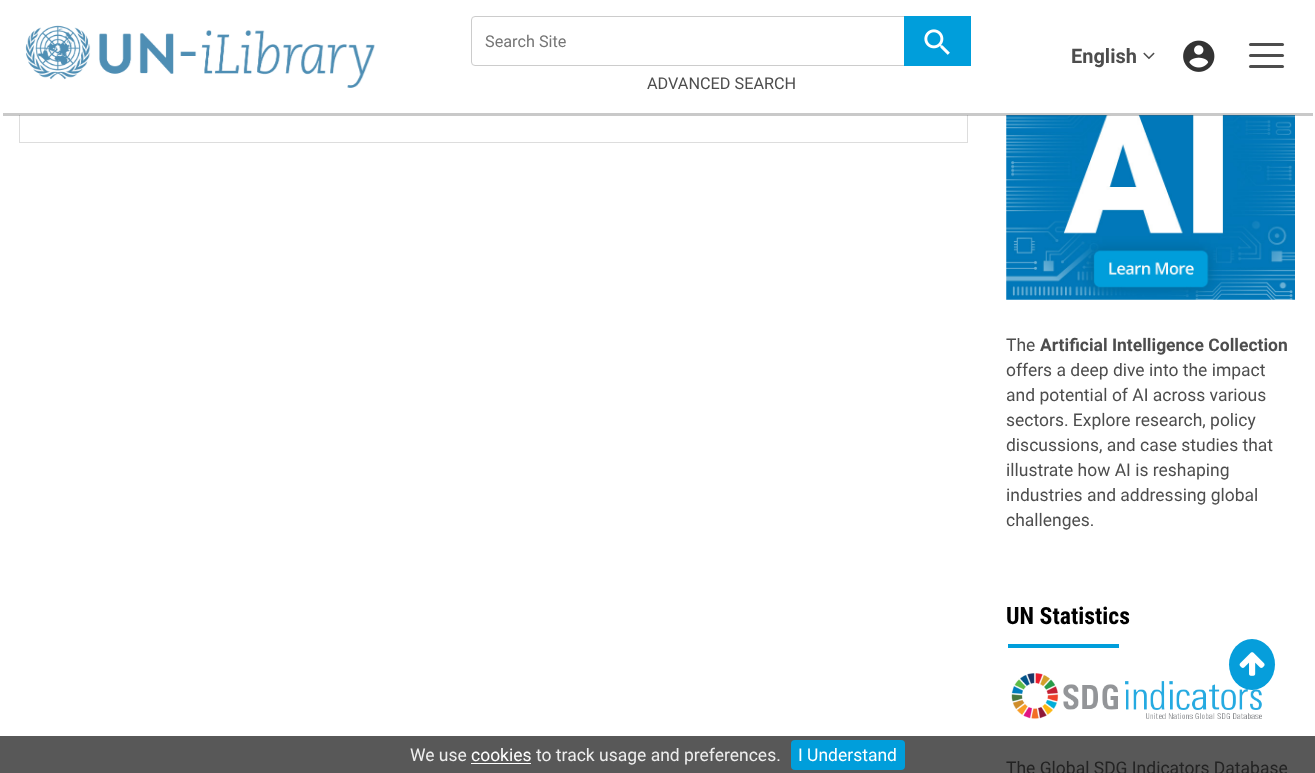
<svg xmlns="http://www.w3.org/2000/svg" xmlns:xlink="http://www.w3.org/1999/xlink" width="1315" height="773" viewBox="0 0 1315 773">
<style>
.cls-1{font:16.25px Roboto;fill:#757575}
.cls-2{font:16.25px Roboto;fill:#4d4d4d}
.cls-3{font:bold 20px Roboto;fill:#4d4d4d}
.cls-4{font:17.5px Roboto;fill:#4d4d4d}
.cls-5{font:bold 17.5px Roboto;fill:#4d4d4d}
.cls-6{font:bold 23.75px Roboto Condensed;fill:#000000}
.cls-7{font:17.5px Roboto;fill:#232323}
.cls-8{font:17.5px Roboto;fill:#eeeeee}
.cls-9{font:17.5px Roboto;fill:#ffffff}
</style>
<rect width="100%" height="100%" fill="#ffffff"/>
<rect fill="#585858" x="0" y="736" width="1315" height="37"/>
<rect fill="none" stroke="#dddddd" x="19.5" y="-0.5" width="948" height="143"/>
<rect fill="#ffffff" x="0" y="0" width="1315" height="115" rx="5"/>
<image xlink:href="image4.png" x="1006" y="115" width="289" height="185"/>
<rect fill="#4d4d4d" fill-opacity="0.3" x="3" y="113" width="1310" height="3"/>
<image xlink:href="image0.png" x="25" y="25" width="350" height="63"/>
<rect fill="none" stroke="#cccccc" x="471.5" y="16.5" width="499" height="49" rx="3.5"/>
<rect fill="#009edb" x="904" y="16" width="67" height="50"/>
<image xlink:href="image1.png" x="924" y="29" width="26" height="26"/>
<image xlink:href="image2.png" x="1143" y="52" width="12" height="8"/>
<image xlink:href="image3.png" x="1183" y="40" width="32" height="32"/>
<rect fill="#4d4d4d" x="1249" y="43" width="35" height="3" rx="1.5"/>
<rect fill="#4d4d4d" x="1249" y="54" width="35" height="3" rx="1.5"/>
<rect fill="#4d4d4d" x="1249" y="65" width="35" height="3" rx="1.5"/>
<rect fill="#009edb" x="1008" y="644" width="111" height="4"/>
<image xlink:href="image5.png" x="1011" y="673" width="251" height="46"/>
<ellipse fill="#069edb" cx="1252" cy="664.5" rx="23" ry="25.5"/>
<image xlink:href="image6.png" x="1239" y="652" width="26" height="24"/>
<rect fill="#ffffff" x="471" y="763" width="60" height="1"/>
<rect fill="#009edb" x="791" y="740" width="114" height="30" rx="4"/>
<text class="cls-1" x="485" y="47">Search Site</text>
<text class="cls-2" x="647" y="89">ADVANCED SEARCH</text>
<text class="cls-3" x="1071" y="63">English</text>
<text class="cls-4" x="1006" y="351">The</text>
<text class="cls-5" x="1040" y="351">Artificial Intelligence Collection</text>
<text class="cls-4"><tspan x="1006" y="376">offers a deep dive into the impact</tspan><tspan x="1006" y="401">and potential of AI across various</tspan><tspan x="1006" y="426">sectors. Explore research, policy</tspan><tspan x="1006" y="451">discussions, and case studies that</tspan><tspan x="1006" y="476">illustrate how AI is reshaping</tspan><tspan x="1006" y="501">industries and addressing global</tspan><tspan x="1006" y="526">challenges.</tspan></text>
<text class="cls-6" x="1006" y="624">UN Statistics</text>
<text class="cls-7" x="1006" y="774">The Global SDG Indicators Database</text>
<text class="cls-8" x="410" y="761">We use</text>
<text class="cls-9" x="471" y="761">cookies</text>
<text class="cls-8" x="536" y="761">to track usage and preferences.</text>
<text class="cls-9" x="798" y="761">I Understand</text>
</svg>
